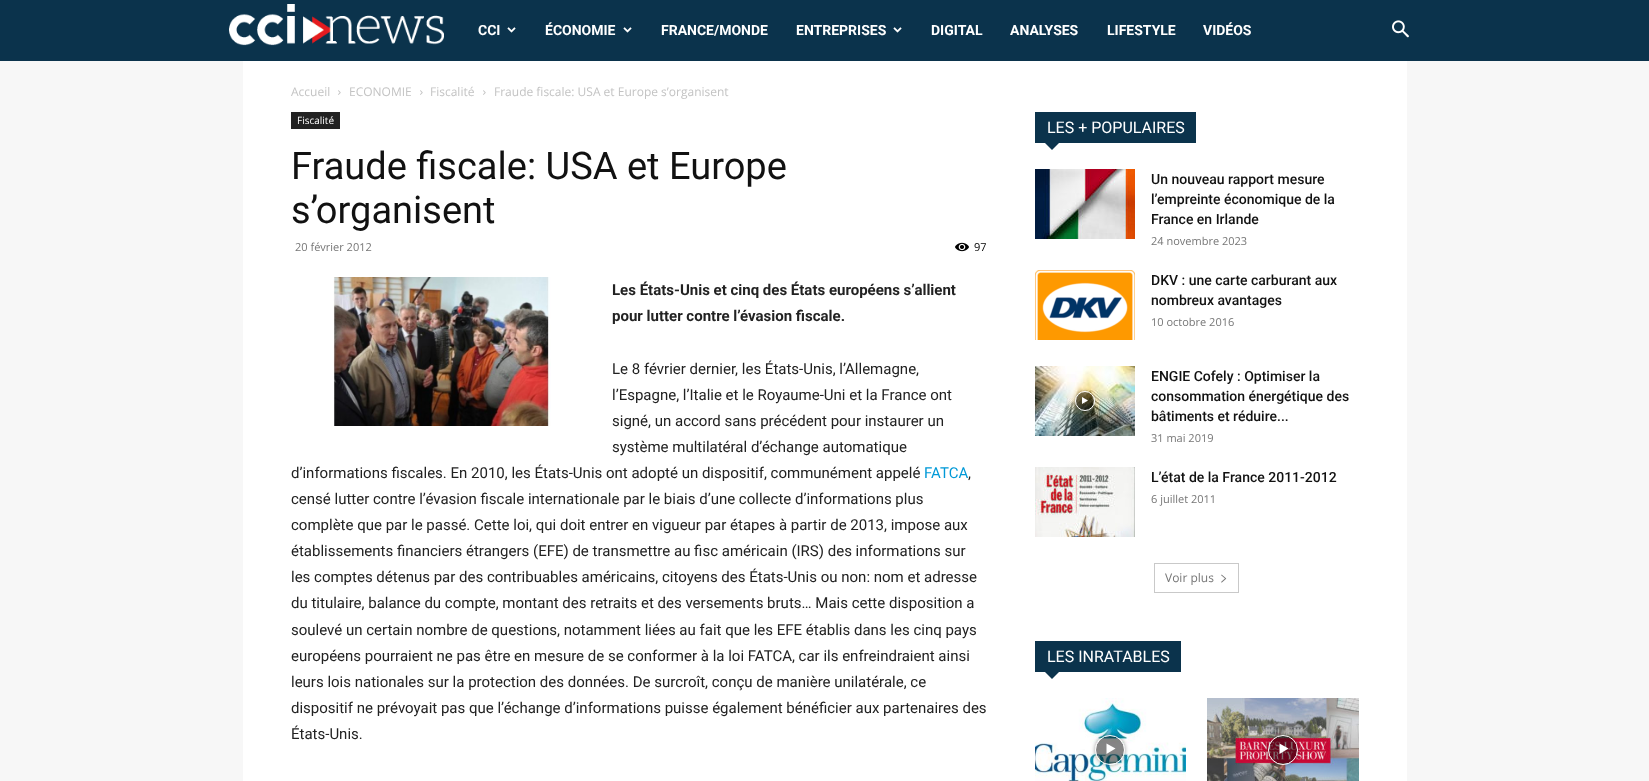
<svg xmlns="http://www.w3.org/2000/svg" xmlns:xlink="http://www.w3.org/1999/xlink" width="1649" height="781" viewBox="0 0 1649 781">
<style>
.cls-1{font:bold 14px Roboto;fill:#ffffff}
.cls-2{font:12px Open Sans;fill:#c3c3c3}
.cls-3{font:10px Open Sans;fill:#ffffff}
.cls-4{font:38px Roboto;fill:#111111}
.cls-5{font:11px Open Sans;fill:#767676}
.cls-6{font:11px Open Sans;fill:#000000}
.cls-7{font:bold 15px Roboto;fill:#222222}
.cls-8{font:15px Roboto;fill:#222222}
.cls-9{font:15px Roboto;fill:#0099d7}
.cls-10{font:16px Roboto;fill:#ffffff}
.cls-11{font:500 14px Roboto;fill:#111111}
.cls-12{font:12px Open Sans;fill:#767676}
</style>
<defs>
<clipPath id="clip1"><path d="M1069 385H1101V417H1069ZM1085 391C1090.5 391 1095 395.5 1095 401C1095 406.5 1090.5 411 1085 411C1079.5 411 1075 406.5 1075 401C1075 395.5 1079.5 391 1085 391Z" clip-rule="evenodd"/></clipPath>
<clipPath id="clip2"><path d="M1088 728H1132V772H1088ZM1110 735C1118.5 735 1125 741.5 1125 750C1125 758.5 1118.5 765 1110 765C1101.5 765 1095 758.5 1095 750C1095 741.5 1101.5 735 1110 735Z" clip-rule="evenodd"/></clipPath>
<clipPath id="clip3"><path d="M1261 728H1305V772H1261ZM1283 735C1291.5 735 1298 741.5 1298 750C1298 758.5 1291.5 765 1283 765C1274.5 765 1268 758.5 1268 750C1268 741.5 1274.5 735 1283 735Z" clip-rule="evenodd"/></clipPath>
</defs>
<rect width="100%" height="100%" fill="#f7f7f7"/>
<rect fill="#0b334c" x="0" y="0" width="1649" height="61"/>
<image xlink:href="image0.png" x="229" y="4" width="215" height="42"/>
<image xlink:href="image1.png" x="507" y="27" width="9" height="6"/>
<image xlink:href="image1.png" x="623" y="27" width="9" height="6"/>
<image xlink:href="image1.png" x="893" y="27" width="9" height="6"/>
<image xlink:href="image2.png" x="1392" y="20" width="17" height="18"/>
<rect fill="#ffffff" x="243" y="61" width="1164" height="720"/>
<image xlink:href="image3.png" x="338" y="90" width="3" height="5"/>
<image xlink:href="image3.png" x="420" y="90" width="3" height="5"/>
<image xlink:href="image3.png" x="483" y="90" width="3" height="5"/>
<rect fill="#222222" x="291" y="112" width="49" height="17"/>
<image xlink:href="image4.png" x="955" y="242" width="14" height="10"/>
<image xlink:href="image5.png" x="333" y="277" width="218" height="149"/>
<rect fill="#0b334c" x="1035" y="112" width="161" height="31"/>
<path fill="#0b334c" d="M1045 143H1059L1052 150Z"/>
<image xlink:href="image6.png" x="1035" y="169" width="100" height="70"/>
<image xlink:href="image7.png" x="1035" y="270" width="100" height="70"/>
<image xlink:href="image8.png" x="1035" y="366" width="100" height="70"/>
<g clip-path="url(#clip1)">
<rect fill="#000000" fill-opacity="0.4" filter="blur(1.5px)" x="1075" y="391" width="20" height="20" rx="10"/>
</g>
<circle fill="#000000" fill-opacity="0.48" stroke="#ffffff" cx="1085" cy="401" r="9.5"/>
<path fill="#ffffff" d="M1082 397V404L1088 400.5Z"/>
<image xlink:href="image9.png" x="1035" y="467" width="100" height="70"/>
<rect fill="none" stroke="#c9c9c9" x="1154.5" y="563.5" width="84" height="29"/>
<image xlink:href="image10.png" x="1221" y="574" width="6" height="9"/>
<rect fill="#0b334c" x="1035" y="641" width="146" height="31"/>
<path fill="#0b334c" d="M1045 672H1059L1052 679Z"/>
<image xlink:href="image11.png" x="1035" y="698" width="151" height="83"/>
<g clip-path="url(#clip2)">
<rect fill="#000000" fill-opacity="0.4" filter="blur(2px)" x="1095" y="735" width="30" height="30" rx="15"/>
</g>
<circle fill="#000000" fill-opacity="0.48" stroke="#ffffff" cx="1110" cy="750" r="14.5"/>
<path fill="#ffffff" d="M1106.5 743.5V754L1115.5 748.5Z"/>
<image xlink:href="image12.png" x="1207" y="698" width="152" height="83"/>
<g clip-path="url(#clip3)">
<rect fill="#000000" fill-opacity="0.4" filter="blur(2px)" x="1268" y="735" width="30" height="30" rx="15"/>
</g>
<circle fill="#000000" fill-opacity="0.48" stroke="#ffffff" cx="1283" cy="750" r="14.5"/>
<path fill="#ffffff" d="M1279.5 743.5V754L1288.5 748.5Z"/>
<text class="cls-1" x="478" y="35">CCI</text>
<text class="cls-1" x="545" y="35">ÉCONOMIE</text>
<text class="cls-1" x="661" y="35">FRANCE/MONDE</text>
<text class="cls-1" x="796" y="35">ENTREPRISES</text>
<text class="cls-1" x="931" y="35">DIGITAL</text>
<text class="cls-1" x="1010" y="35">ANALYSES</text>
<text class="cls-1" x="1107" y="35">LIFESTYLE</text>
<text class="cls-1" x="1203" y="35">VIDÉOS</text>
<text class="cls-2" x="291" y="96">Accueil</text>
<text class="cls-2" x="349" y="96">ECONOMIE</text>
<text class="cls-2" x="430" y="96">Fiscalité</text>
<text class="cls-2" x="494" y="96">Fraude fiscale: USA et Europe s’organisent</text>
<text class="cls-3" x="297" y="124">Fiscalité</text>
<text class="cls-4"><tspan x="291" y="179">Fraude fiscale: USA et Europe</tspan><tspan x="291" y="223">s’organisent</tspan></text>
<text class="cls-5" x="295" y="251">20 février 2012</text>
<text class="cls-6" x="974" y="251">97</text>
<text class="cls-7"><tspan x="612" y="295">Les États-Unis et cinq des États européens s’allient</tspan><tspan x="612" y="321">pour lutter contre l’évasion fiscale.</tspan></text>
<text class="cls-8"><tspan x="612" y="374">Le 8 février dernier, les États-Unis, l’Allemagne,</tspan><tspan x="612" y="400">l’Espagne, l’Italie et le Royaume-Uni et la France ont</tspan><tspan x="612" y="426">signé, un accord sans précédent pour instaurer un</tspan><tspan x="612" y="452">système multilatéral d’échange automatique</tspan></text>
<text class="cls-8" x="291" y="478">d’informations fiscales. En 2010, les États-Unis ont adopté un dispositif, communément appelé</text>
<text class="cls-9" x="924" y="478">FATCA</text>
<text class="cls-8" x="968" y="478">,</text>
<text class="cls-8"><tspan x="291" y="504">censé lutter contre l’évasion fiscale internationale par le biais d’une collecte d’informations plus</tspan><tspan x="291" y="530">complète que par le passé. Cette loi, qui doit entrer en vigueur par étapes à partir de 2013, impose aux</tspan><tspan x="291" y="556">établissements financiers étrangers (EFE) de transmettre au fisc américain (IRS) des informations sur</tspan><tspan x="291" y="582">les comptes détenus par des contribuables américains, citoyens des États-Unis ou non: nom et adresse</tspan><tspan x="291" y="608">du titulaire, balance du compte, montant des retraits et des versements bruts… Mais cette disposition a</tspan><tspan x="291" y="635">soulevé un certain nombre de questions, notamment liées au fait que les EFE établis dans les cinq pays</tspan><tspan x="291" y="661">européens pourraient ne pas être en mesure de se conformer à la loi FATCA, car ils enfreindraient ainsi</tspan><tspan x="291" y="687">leurs lois nationales sur la protection des données. De surcroît, conçu de manière unilatérale, ce</tspan><tspan x="291" y="713">dispositif ne prévoyait pas que l’échange d’informations puisse également bénéficier aux partenaires des</tspan><tspan x="291" y="739">États-Unis.</tspan></text>
<text class="cls-10" x="1047" y="133">LES + POPULAIRES</text>
<text class="cls-11"><tspan x="1151" y="184">Un nouveau rapport mesure</tspan><tspan x="1151" y="204">l’empreinte économique de la</tspan><tspan x="1151" y="224">France en Irlande</tspan></text>
<text class="cls-5" x="1151" y="245">24 novembre 2023</text>
<text class="cls-11"><tspan x="1151" y="285">DKV : une carte carburant aux</tspan><tspan x="1151" y="305">nombreux avantages</tspan></text>
<text class="cls-5" x="1151" y="326">10 octobre 2016</text>
<text class="cls-11"><tspan x="1151" y="381">ENGIE Cofely : Optimiser la</tspan><tspan x="1151" y="401">consommation énergétique des</tspan><tspan x="1151" y="421">bâtiments et réduire...</tspan></text>
<text class="cls-5" x="1151" y="442">31 mai 2019</text>
<text class="cls-11" x="1151" y="482">L’état de la France 2011-2012</text>
<text class="cls-5" x="1151" y="503">6 juillet 2011</text>
<text class="cls-12" x="1165" y="582">Voir plus</text>
<text class="cls-10" x="1047" y="662">LES INRATABLES</text>
</svg>
